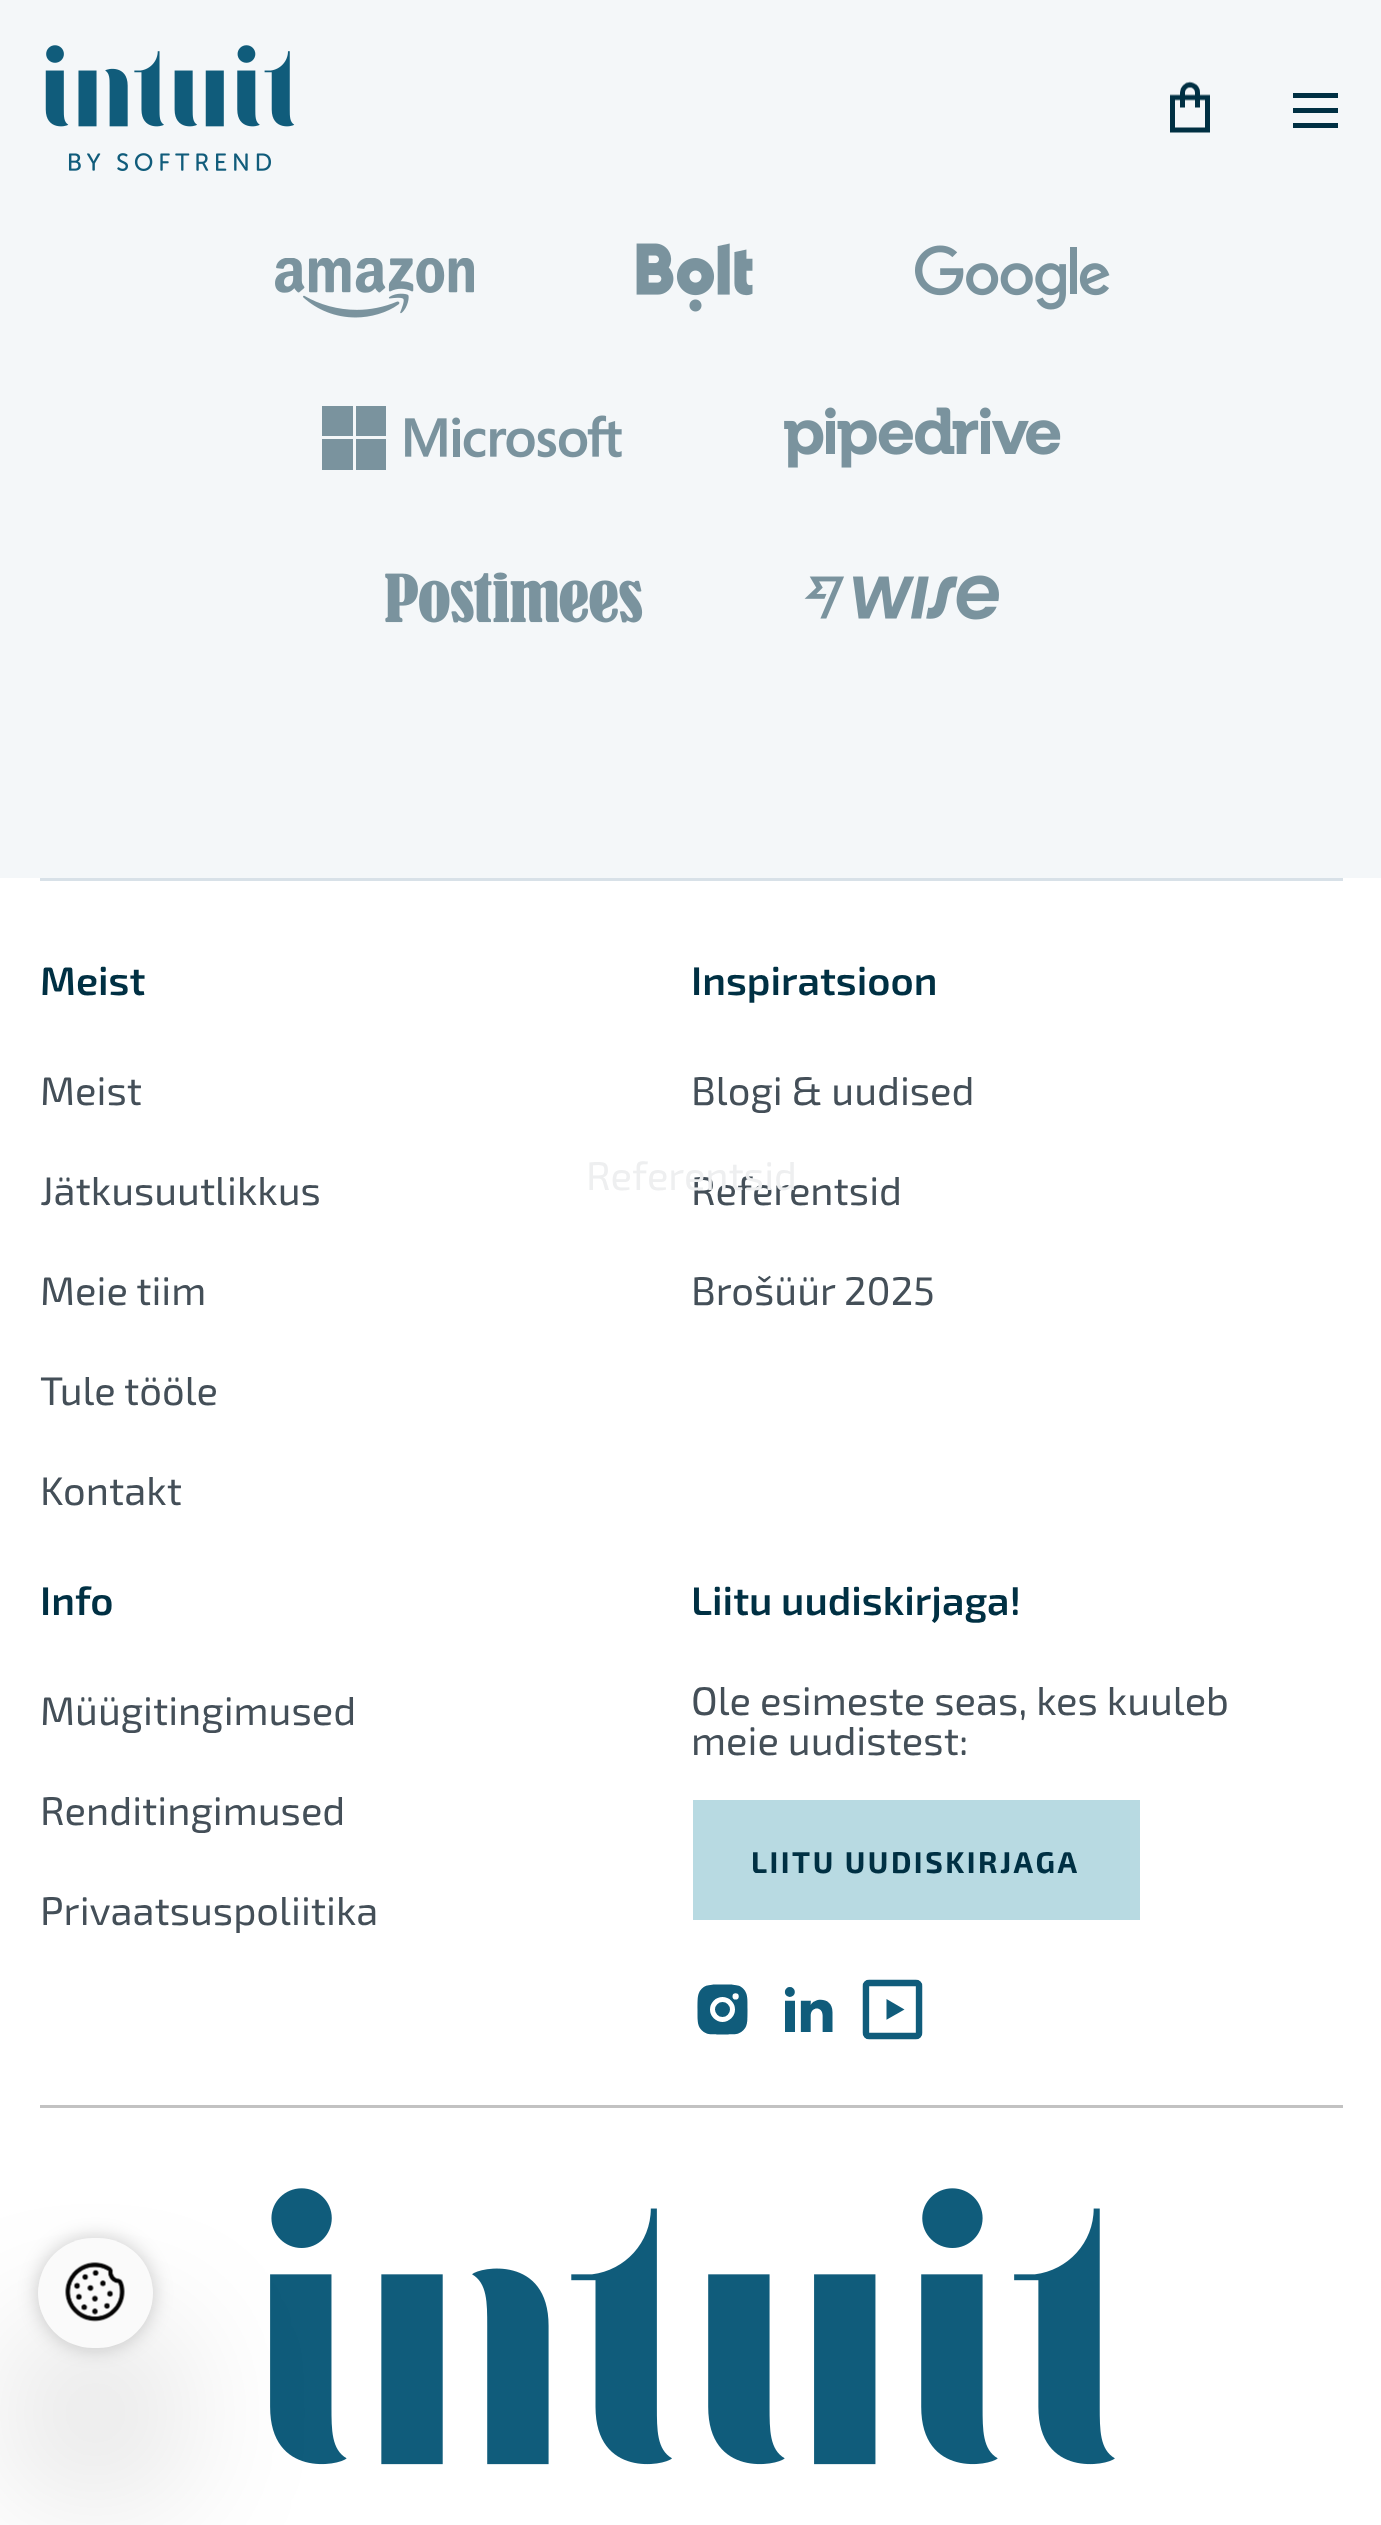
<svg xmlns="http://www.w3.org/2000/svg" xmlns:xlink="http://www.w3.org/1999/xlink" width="1381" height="2525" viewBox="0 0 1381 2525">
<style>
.cls-1{font:600 40px 'Exo 2';fill:#003043}
.cls-2{font:40px 'Exo 2';fill:#444f58}
.cls-3{font:bold 30px 'Exo 2';letter-spacing:2.5px;fill:#003043}
.cls-4{font:40px 'Exo 2';fill:#eeeff0}
</style>
<rect width="100%" height="100%" fill="#ffffff"/>
<rect fill="#f4f7f9" x="0" y="0" width="1381" height="878"/>
<image xlink:href="image0.png" x="275" y="258" width="199" height="60"/>
<image xlink:href="image1.png" x="636" y="243" width="117" height="69"/>
<image xlink:href="image2.png" x="915" y="245" width="195" height="65"/>
<image xlink:href="image3.png" x="322" y="406" width="300" height="64"/>
<image xlink:href="image4.png" x="784" y="407" width="277" height="61"/>
<image xlink:href="image5.png" x="385" y="572" width="258" height="51"/>
<image xlink:href="image6.png" x="804" y="575" width="195" height="45"/>
<rect fill="#d8e1e8" x="40" y="878" width="1303" height="3"/>
<rect fill="#c2c2c2" x="40" y="2105" width="1303" height="3"/>
<rect fill="#b8dae2" x="693" y="1800" width="447" height="120"/>
<image xlink:href="image7.png" x="697" y="1984" width="51" height="51"/>
<image xlink:href="image8.png" x="784" y="1987" width="49" height="45"/>
<image xlink:href="image9.png" x="862" y="1979" width="61" height="61"/>
<image xlink:href="image10.png" x="270" y="2188" width="845" height="277"/>
<image xlink:href="image11.png" x="45" y="45" width="250" height="126"/>
<image xlink:href="image12.png" x="1170" y="81" width="40" height="52"/>
<rect fill="#003043" x="1293" y="108" width="45" height="5"/>
<rect fill="#003043" x="1293" y="93" width="45" height="5"/>
<rect fill="#003043" x="1293" y="123" width="45" height="5"/>
<rect fill="#000000" fill-opacity="0.3" filter="blur(80px)" x="38" y="2358" width="115" height="110" rx="55"/>
<rect fill="#000000" fill-opacity="0.2" filter="blur(10px)" x="38" y="2238" width="115" height="110" rx="55"/>
<rect fill="#fafafa" x="38" y="2238" width="115" height="110" rx="55"/>
<image xlink:href="image13.png" x="65" y="2262" width="60" height="60"/>
<text class="cls-1" x="40" y="995">Meist</text>
<text class="cls-2" x="40" y="1105">Meist</text>
<text class="cls-2" x="40" y="1205">Jätkusuutlikkus</text>
<text class="cls-2" x="40" y="1305">Meie tiim</text>
<text class="cls-2" x="40" y="1405">Tule tööle</text>
<text class="cls-2" x="40" y="1505">Kontakt</text>
<text class="cls-1" x="691" y="995">Inspiratsioon</text>
<text class="cls-2" x="691" y="1105">Blogi &amp; uudised</text>
<text class="cls-2" x="691" y="1205">Referentsid</text>
<text class="cls-2" x="691" y="1305">Brošüür 2025</text>
<text class="cls-1" x="40" y="1615">Info</text>
<text class="cls-2" x="40" y="1725">Müügitingimused</text>
<text class="cls-2" x="40" y="1825">Renditingimused</text>
<text class="cls-2" x="40" y="1925">Privaatsuspoliitika</text>
<text class="cls-1" x="691" y="1615">Liitu uudiskirjaga!</text>
<text class="cls-2"><tspan x="691" y="1715">Ole esimeste seas, kes kuuleb</tspan><tspan x="691" y="1755">meie uudistest:</tspan></text>
<text class="cls-3" x="751" y="1873">LIITU UUDISKIRJAGA</text>
<text class="cls-4" x="586" y="1190">Referentsid</text>
</svg>
